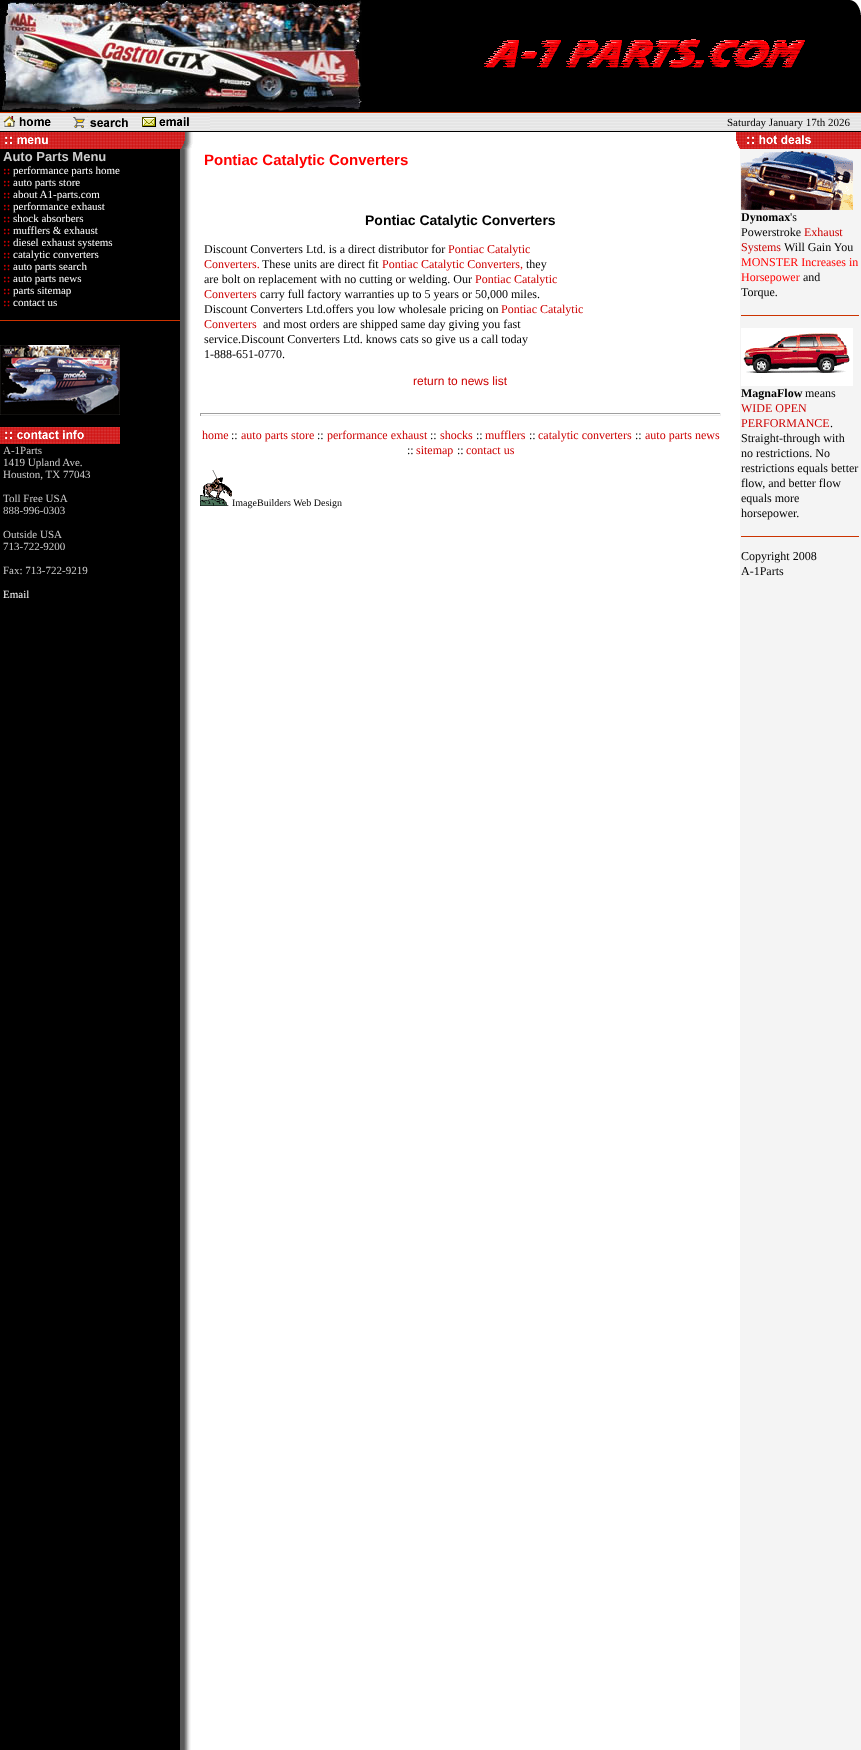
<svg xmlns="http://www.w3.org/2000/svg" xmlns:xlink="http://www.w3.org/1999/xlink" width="861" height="1750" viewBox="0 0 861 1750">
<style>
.cls-1{font:11px Liberation Serif;fill:#000000}
.cls-2{font:bold 13px Liberation Sans;fill:#cccccc}
.cls-3{font:bold 11px Liberation Serif;fill:#cc0000}
.cls-4{font:11px Liberation Serif;fill:#ffffff}
.cls-5{font:11px Liberation Serif;fill:#cccccc}
.cls-6{font:bold 15px Liberation Sans;fill:#ff0000}
.cls-7{font:bold 14px Liberation Sans;fill:#000000}
.cls-8{font:12px Liberation Serif;fill:#000000}
.cls-9{font:12px Liberation Serif;fill:#cc0000}
.cls-10{font:12px Liberation Sans;fill:#cc0000}
.cls-11{font:10px Liberation Serif;fill:#000000}
.cls-12{font:bold 12px Liberation Serif;fill:#000000}
.cls-13{font:12px Liberation Serif;fill:#ff0000}
</style>
<rect width="100%" height="100%" fill="#ffffff"/>
<rect fill="#000000" x="362" y="0" width="69" height="112"/>
<image xlink:href="image0.png" x="0" y="0" width="362" height="112"/>
<rect fill="#000000" x="431" y="0" width="430" height="112"/>
<image xlink:href="image1.png" x="850" y="0" width="11" height="15"/>
<image xlink:href="image2.png" x="484" y="39" width="321" height="29"/>
<rect fill="#cc3300" x="0" y="112" width="861" height="1"/>
<image xlink:href="image3.png" x="0" y="113" width="431" height="18"/>
<image xlink:href="image4.png" x="0" y="113" width="70" height="17"/>
<image xlink:href="image5.png" x="70" y="113" width="70" height="17"/>
<image xlink:href="image6.png" x="140" y="113" width="70" height="17"/>
<image xlink:href="image7.png" x="431" y="113" width="430" height="18"/>
<rect fill="#000000" x="0" y="131" width="861" height="1"/>
<rect fill="#000000" x="0" y="149" width="180" height="1601"/>
<image xlink:href="image8.png" x="180" y="132" width="20" height="1618"/>
<image xlink:href="image9.png" x="0" y="132" width="193" height="17"/>
<rect fill="#cc3300" x="0" y="320" width="180" height="1"/>
<image xlink:href="image10.png" x="0" y="345" width="120" height="70"/>
<image xlink:href="image11.png" x="0" y="427" width="120" height="17"/>
<rect fill="#9f9f9f" x="200" y="413" width="521" height="1"/>
<rect fill="#eeeeee" x="720" y="413" width="1" height="3"/>
<rect fill="#eeeeee" x="200" y="415" width="521" height="1"/>
<rect fill="#9f9f9f" x="200" y="413" width="1" height="3"/>
<image xlink:href="image12.png" x="200" y="470" width="32" height="36"/>
<rect fill="#f4f4f4" x="740" y="149" width="121" height="1601"/>
<image xlink:href="image13.png" x="736" y="132" width="125" height="17"/>
<image xlink:href="image14.png" x="741" y="151" width="112" height="59"/>
<rect fill="#cc3300" x="741" y="315" width="118" height="1"/>
<image xlink:href="image15.png" x="741" y="328" width="112" height="58"/>
<rect fill="#cc3300" x="741" y="536" width="118" height="1"/>
<text class="cls-1" x="727" y="126">Saturday January 17th 2026</text>
<text class="cls-2" x="3" y="161">Auto Parts Menu</text>
<text class="cls-3" x="3" y="174">::</text>
<text class="cls-4" x="13" y="174">performance parts home</text>
<text class="cls-3" x="3" y="186">::</text>
<text class="cls-4" x="13" y="186">auto parts store</text>
<text class="cls-3" x="3" y="198">::</text>
<text class="cls-4" x="13" y="198">about A1-parts.com</text>
<text class="cls-3" x="3" y="210">::</text>
<text class="cls-4" x="13" y="210">performance exhaust</text>
<text class="cls-3" x="3" y="222">::</text>
<text class="cls-4" x="13" y="222">shock absorbers</text>
<text class="cls-3" x="3" y="234">::</text>
<text class="cls-4" x="13" y="234">mufflers &amp; exhaust</text>
<text class="cls-3" x="3" y="246">::</text>
<text class="cls-4" x="13" y="246">diesel exhaust systems</text>
<text class="cls-3" x="3" y="258">::</text>
<text class="cls-4" x="13" y="258">catalytic converters</text>
<text class="cls-3" x="3" y="270">::</text>
<text class="cls-4" x="13" y="270">auto parts search</text>
<text class="cls-3" x="3" y="282">::</text>
<text class="cls-4" x="13" y="282">auto parts news</text>
<text class="cls-3" x="3" y="294">::</text>
<text class="cls-4" x="13" y="294">parts sitemap</text>
<text class="cls-3" x="3" y="306">::</text>
<text class="cls-4" x="13" y="306">contact us</text>
<text class="cls-5"><tspan x="3" y="454">A-1Parts</tspan><tspan x="3" y="466">1419 Upland Ave.</tspan><tspan x="3" y="478">Houston, TX 77043</tspan></text>
<text class="cls-5"><tspan x="3" y="502">Toll Free USA</tspan><tspan x="3" y="514">888-996-0303</tspan></text>
<text class="cls-5"><tspan x="3" y="538">Outside USA</tspan><tspan x="3" y="550">713-722-9200</tspan></text>
<text class="cls-5" x="3" y="574">Fax: 713-722-9219</text>
<text class="cls-4" x="3" y="598">Email</text>
<text class="cls-6" x="204" y="165">Pontiac Catalytic Converters</text>
<text class="cls-7" x="365" y="225">Pontiac Catalytic Converters</text>
<text class="cls-8" x="204" y="253">Discount Converters Ltd. is a direct distributor for</text>
<text class="cls-9" x="448" y="253">Pontiac Catalytic</text>
<text class="cls-9" x="204" y="268">Converters.</text>
<text class="cls-8" x="262" y="268">These units are direct fit</text>
<text class="cls-9" x="382" y="268">Pontiac Catalytic Converters,</text>
<text class="cls-8" x="526" y="268">they</text>
<text class="cls-8" x="204" y="283">are bolt on replacement with no cutting or welding. Our</text>
<text class="cls-9" x="475" y="283">Pontiac Catalytic</text>
<text class="cls-9" x="204" y="298">Converters</text>
<text class="cls-8" x="260" y="298">carry full factory warranties up to 5 years or 50,000 miles.</text>
<text class="cls-8" x="204" y="313">Discount Converters Ltd.offers you low wholesale pricing on</text>
<text class="cls-9" x="501" y="313">Pontiac Catalytic</text>
<text class="cls-9" x="204" y="328">Converters</text>
<text class="cls-8" x="263" y="328">and most orders are shipped same day giving you fast</text>
<text class="cls-8"><tspan x="204" y="343">service.Discount Converters Ltd. knows cats so give us a call today</tspan><tspan x="204" y="358">1-888-651-0770.</tspan></text>
<text class="cls-10" x="413" y="385">return to news list</text>
<text class="cls-9" x="202" y="439">home</text>
<text class="cls-8" x="231" y="439">::</text>
<text class="cls-9" x="241" y="439">auto parts store</text>
<text class="cls-8" x="317" y="439">::</text>
<text class="cls-9" x="327" y="439">performance exhaust</text>
<text class="cls-8" x="430" y="439">::</text>
<text class="cls-9" x="440" y="439">shocks</text>
<text class="cls-8" x="476" y="439">::</text>
<text class="cls-9" x="485" y="439">mufflers</text>
<text class="cls-8" x="529" y="439">::</text>
<text class="cls-9" x="538" y="439">catalytic converters</text>
<text class="cls-8" x="635" y="439">::</text>
<text class="cls-9" x="645" y="439">auto parts news</text>
<text class="cls-8" x="407" y="454">::</text>
<text class="cls-9" x="416" y="454">sitemap</text>
<text class="cls-8" x="457" y="454">::</text>
<text class="cls-9" x="466" y="454">contact us</text>
<text class="cls-11" x="232" y="506">ImageBuilders Web Design</text>
<text class="cls-12" x="741" y="221">Dynomax</text>
<text class="cls-8" x="790" y="221">'s</text>
<text class="cls-8" x="741" y="236">Powerstroke</text>
<text class="cls-9" x="804" y="236">Exhaust</text>
<text class="cls-9" x="741" y="251">Systems</text>
<text class="cls-8" x="784" y="251">Will Gain You</text>
<text class="cls-13"><tspan x="741" y="266">MONSTER Increases in</tspan><tspan x="741" y="281">Horsepower</tspan></text>
<text class="cls-8" x="803" y="281">and</text>
<text class="cls-8" x="741" y="296">Torque.</text>
<text class="cls-12" x="741" y="397">MagnaFlow</text>
<text class="cls-8" x="805" y="397">means</text>
<text class="cls-9"><tspan x="741" y="412">WIDE OPEN</tspan><tspan x="741" y="427">PERFORMANCE</tspan></text>
<text class="cls-8" x="830" y="427">.</text>
<text class="cls-8"><tspan x="741" y="442">Straight-through with</tspan><tspan x="741" y="457">no restrictions. No</tspan><tspan x="741" y="472">restrictions equals better</tspan><tspan x="741" y="487">flow, and better flow</tspan><tspan x="741" y="502">equals more</tspan><tspan x="741" y="517">horsepower.</tspan></text>
<text class="cls-8"><tspan x="741" y="560">Copyright 2008</tspan><tspan x="741" y="575">A-1Parts</tspan></text>
</svg>
